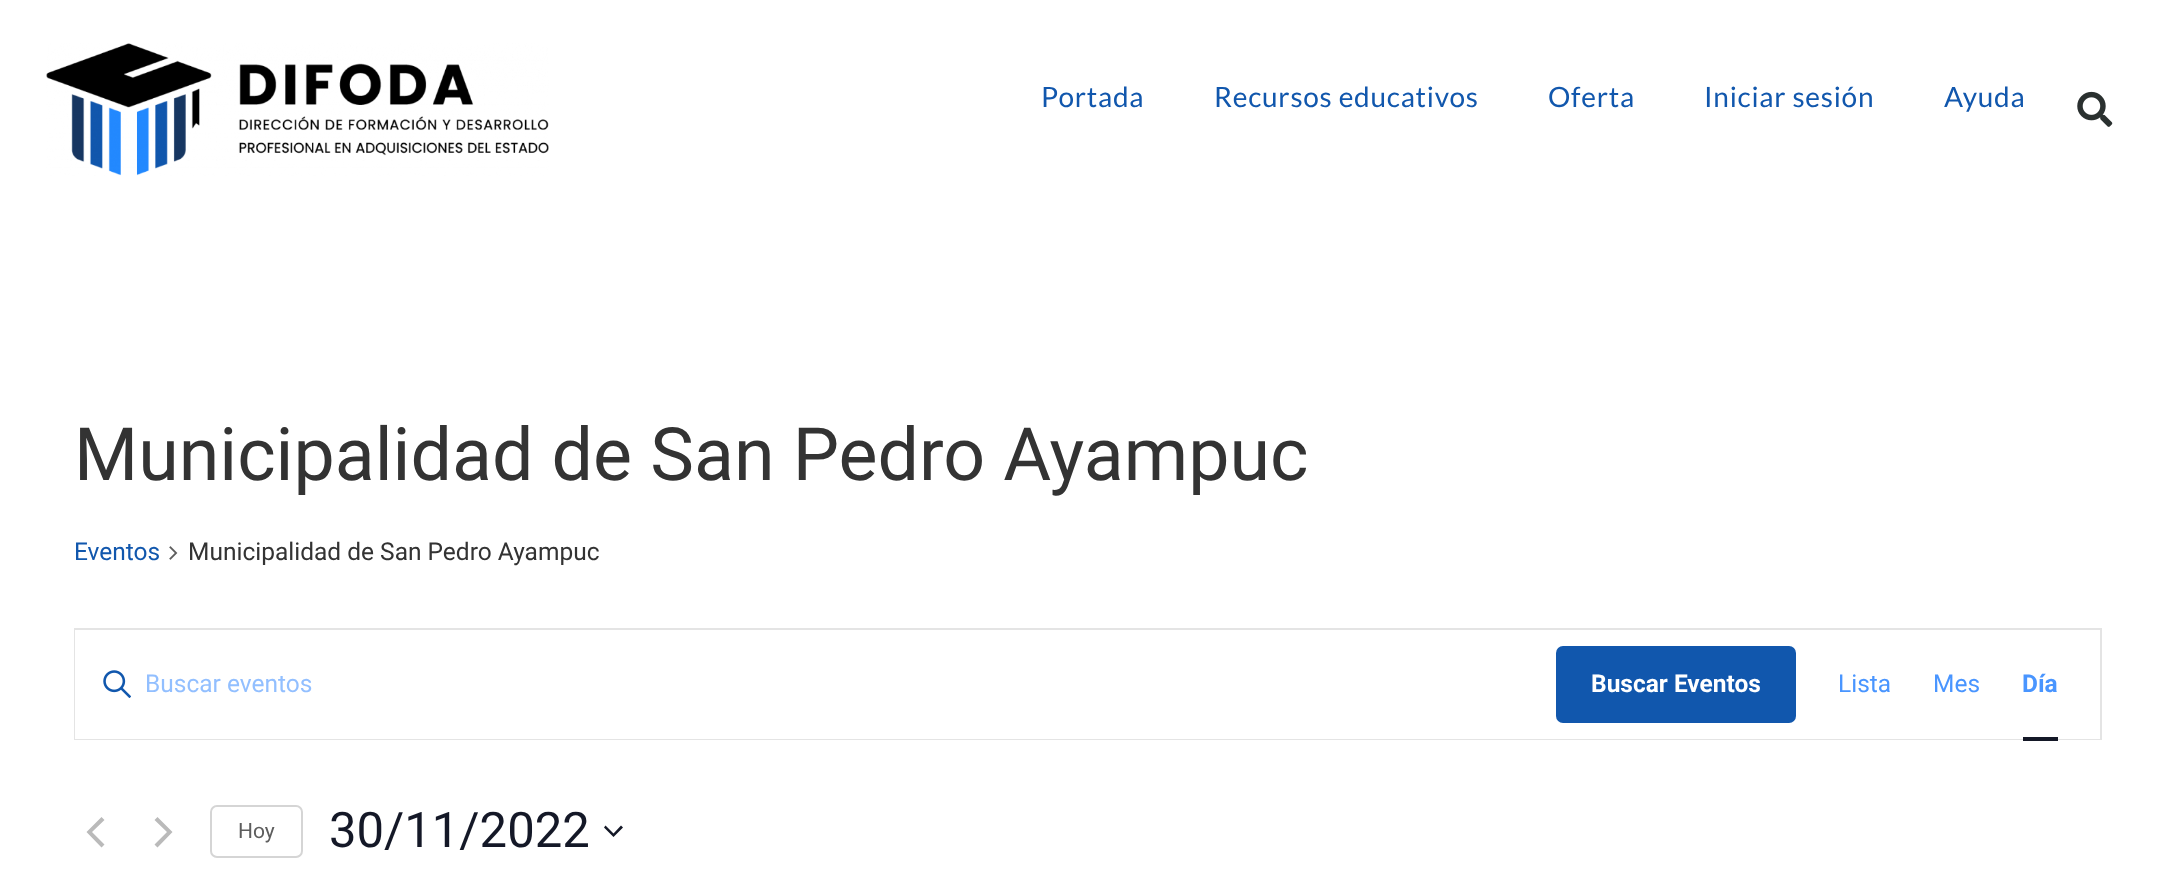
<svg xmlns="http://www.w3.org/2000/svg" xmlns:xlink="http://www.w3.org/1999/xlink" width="2175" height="878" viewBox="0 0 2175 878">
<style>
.cls-1{font:28px Lato;letter-spacing:0.75px;fill:#1157ad}
.cls-2{font:73.5px Roboto;fill:#333333}
.cls-3{font:24.5px Roboto;fill:#1157ad}
.cls-4{font:24.5px Roboto;fill:#333333}
.cls-5{font:24.5px Roboto;fill:#92bfff}
.cls-6{font:bold 24.5px Roboto;fill:#ffffff}
.cls-7{font:24.5px Roboto;fill:#4995ff}
.cls-8{font:bold 24.5px Roboto;fill:#4995ff}
.cls-9{font:21px Roboto;fill:#5d5d5d}
.cls-10{font:49px Roboto;fill:#141827}
</style>
<rect width="100%" height="100%" fill="#ffffff"/>
<image xlink:href="image0.png" x="46" y="43" width="503" height="133"/>
<image xlink:href="image1.png" x="2077" y="91" width="36" height="36"/>
<image xlink:href="image2.png" x="169" y="546" width="9" height="14"/>
<rect fill="none" stroke="#e4e4e4" stroke-width="2" x="75" y="629" width="2026" height="110"/>
<rect fill="#ffffff" x="75" y="630" width="1721" height="109"/>
<image xlink:href="image3.png" x="103" y="670" width="28" height="28"/>
<rect fill="#1157ad" x="1556" y="646" width="240" height="77" rx="7"/>
<rect fill="#ffffff" x="1796" y="738" width="304" height="1"/>
<rect fill="#141827" x="2023" y="737" width="35" height="4"/>
<path fill="#bababa" d="M104.5 844.5L101.5 847.5L86.5 832L101.5 817L104.5 820L92 832Z"/>
<path fill="#bababa" d="M154.5 820L157.5 817L172.5 832L157.5 847.5L154.5 844.5L167 832Z"/>
<rect fill="none" stroke="#d5d5d5" stroke-width="2" x="211" y="806" width="91" height="51" rx="6"/>
<path fill="#141827" fill-rule="evenodd" d="M605.5 825.5L613.5 833.5L621 825.5L623 827.5L613.5 837L604 827.5Z"/>
<text class="cls-1" x="1041" y="107">Portada</text>
<text class="cls-1" x="1214" y="107">Recursos educativos</text>
<text class="cls-1" x="1548" y="107">Oferta</text>
<text class="cls-1" x="1704" y="107">Iniciar sesión</text>
<text class="cls-1" x="1944" y="107">Ayuda</text>
<text class="cls-2" x="74" y="480">Municipalidad de San Pedro Ayampuc</text>
<text class="cls-3" x="74" y="560">Eventos</text>
<text class="cls-4" x="188" y="560">Municipalidad de San Pedro Ayampuc</text>
<text class="cls-5" x="145" y="692">Buscar eventos</text>
<text class="cls-6" x="1591" y="692">Buscar Eventos</text>
<text class="cls-7" x="1838" y="692">Lista</text>
<text class="cls-7" x="1933" y="692">Mes</text>
<text class="cls-8" x="2022" y="692">Día</text>
<text class="cls-9" x="238" y="838">Hoy</text>
<text class="cls-10" x="329" y="847">30/11/2022</text>
</svg>
